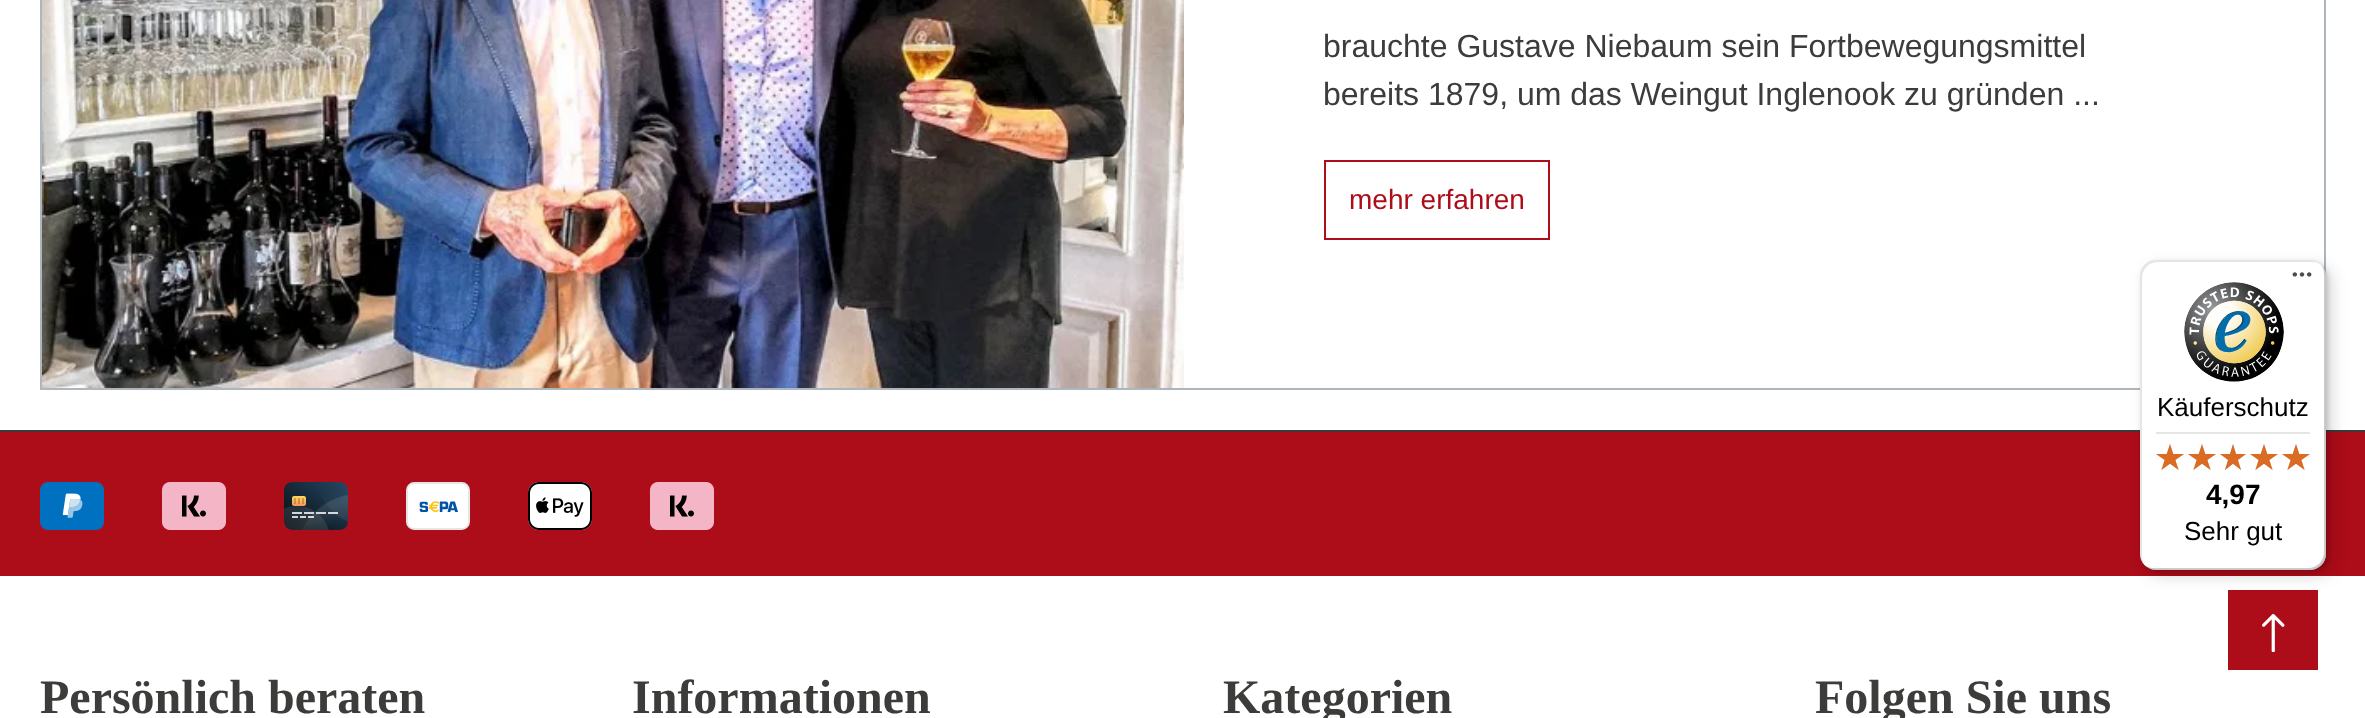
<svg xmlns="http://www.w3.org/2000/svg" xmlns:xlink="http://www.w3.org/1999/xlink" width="2365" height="718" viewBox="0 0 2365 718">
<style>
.cls-1{font:32px Liberation Sans;fill:#3c3c3b}
.cls-2{font:28px Liberation Sans;fill:#ad0c19}
.cls-3{font:26px Liberation Sans;fill:#000000}
.cls-4{font:bold 28px Liberation Sans;fill:#000000}
.cls-5{font:bold 48px Liberation Serif;fill:#3c3c3b}
</style>
<rect width="100%" height="100%" fill="#ffffff"/>
<rect fill="none" stroke="#adb5bd" stroke-width="2" x="41" y="-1" width="2284" height="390"/>
<image xlink:href="image0.png" x="42" y="0" width="1142" height="388"/>
<rect fill="none" stroke="#ad0c19" stroke-width="2" x="1325" y="161" width="224" height="78"/>
<rect fill="#ad0c19" x="2228" y="590" width="90" height="80"/>
<rect fill="#3b3b3c" x="0" y="430" width="2365" height="2"/>
<rect fill="#ad0c19" x="0" y="432" width="2365" height="144"/>
<rect fill="#000000" fill-opacity="0.15" filter="blur(8px)" x="2146" y="266" width="186" height="310" rx="16"/>
<rect fill="#000000" fill-opacity="0.15" filter="blur(2px)" x="2142" y="262" width="186" height="310" rx="16"/>
<rect fill="#ffffff" x="2140" y="260" width="186" height="310" rx="16"/>
<path fill="#000000" fill-opacity="0.1" d="M2158 262H2312C2316 262 2319 263 2322 265C2319 262 2315 260 2310 260H2156C2147 260 2140 267 2140 276V554C2140 559 2142 563 2145 566C2143 563 2142 560 2142 556V278C2142 269 2149 262 2158 262Z"/>
<path fill="#000000" fill-opacity="0.2" d="M2144 565C2147 568 2151 570 2156 570H2310C2319 570 2326 563 2326 554V276C2326 271 2324 267 2321 264C2323 267 2324 270 2324 274V552C2324 561 2317 568 2308 568H2154C2150 568 2147 567 2144 565Z"/>
<path fill="#323232" fill-opacity="0.2" d="M2145 565C2148 568 2152 570 2156 570H2310C2319 570 2326 563 2326 554V276C2326 272 2324 268 2321 265C2324 268 2325 271 2325 275V553C2325 562 2318 569 2309 569H2155C2151 569 2148 568 2145 565Z"/>
<path fill="#ffffff" fill-opacity="0.3" d="M2145 565C2148 568 2152 570 2156 570H2310C2319 570 2326 563 2326 554V276C2326 272 2324 268 2321 265C2324 268 2325 271 2325 275V553C2325 562 2318 569 2309 569H2155C2151 569 2148 568 2145 565Z"/>
<image xlink:href="image1.png" x="2292" y="272" width="20" height="5"/>
<image xlink:href="image2.png" x="2184" y="282" width="100" height="100"/>
<rect fill="#e5e5e5" x="2156" y="432" width="154" height="2"/>
<image xlink:href="image3.png" x="2156" y="444" width="28" height="26"/>
<image xlink:href="image3.png" x="2188" y="444" width="28" height="26"/>
<image xlink:href="image4.png" x="2220" y="444" width="26" height="26"/>
<image xlink:href="image3.png" x="2250" y="444" width="28" height="26"/>
<image xlink:href="image3.png" x="2282" y="444" width="28" height="26"/>
<image xlink:href="image5.png" x="2156" y="444" width="28" height="26"/>
<image xlink:href="image5.png" x="2188" y="444" width="28" height="26"/>
<image xlink:href="image6.png" x="2220" y="444" width="26" height="26"/>
<image xlink:href="image5.png" x="2250" y="444" width="28" height="26"/>
<image xlink:href="image5.png" x="2282" y="444" width="28" height="26"/>
<image xlink:href="image7.png" x="2262" y="614" width="23" height="38"/>
<image xlink:href="image8.png" x="40" y="482" width="64" height="48"/>
<image xlink:href="image9.png" x="162" y="482" width="64" height="48"/>
<image xlink:href="image10.png" x="284" y="482" width="64" height="48"/>
<image xlink:href="image11.png" x="406" y="482" width="64" height="48"/>
<image xlink:href="image12.png" x="528" y="482" width="64" height="48"/>
<image xlink:href="image9.png" x="650" y="482" width="64" height="48"/>
<text class="cls-1"><tspan x="1323" y="57">brauchte Gustave Niebaum sein Fortbewegungsmittel</tspan><tspan x="1323" y="105">bereits 1879, um das Weingut Inglenook zu gründen ...</tspan></text>
<text class="cls-2" x="1349" y="209">mehr erfahren</text>
<text class="cls-3" x="2157" y="416">Käuferschutz</text>
<text class="cls-4" x="2206" y="504">4,97</text>
<text class="cls-3" x="2184" y="540">Sehr gut</text>
<text class="cls-5" x="40" y="713">Persönlich beraten</text>
<text class="cls-5" x="632" y="713">Informationen</text>
<text class="cls-5" x="1223" y="713">Kategorien</text>
<text class="cls-5" x="1815" y="713">Folgen Sie uns</text>
</svg>
